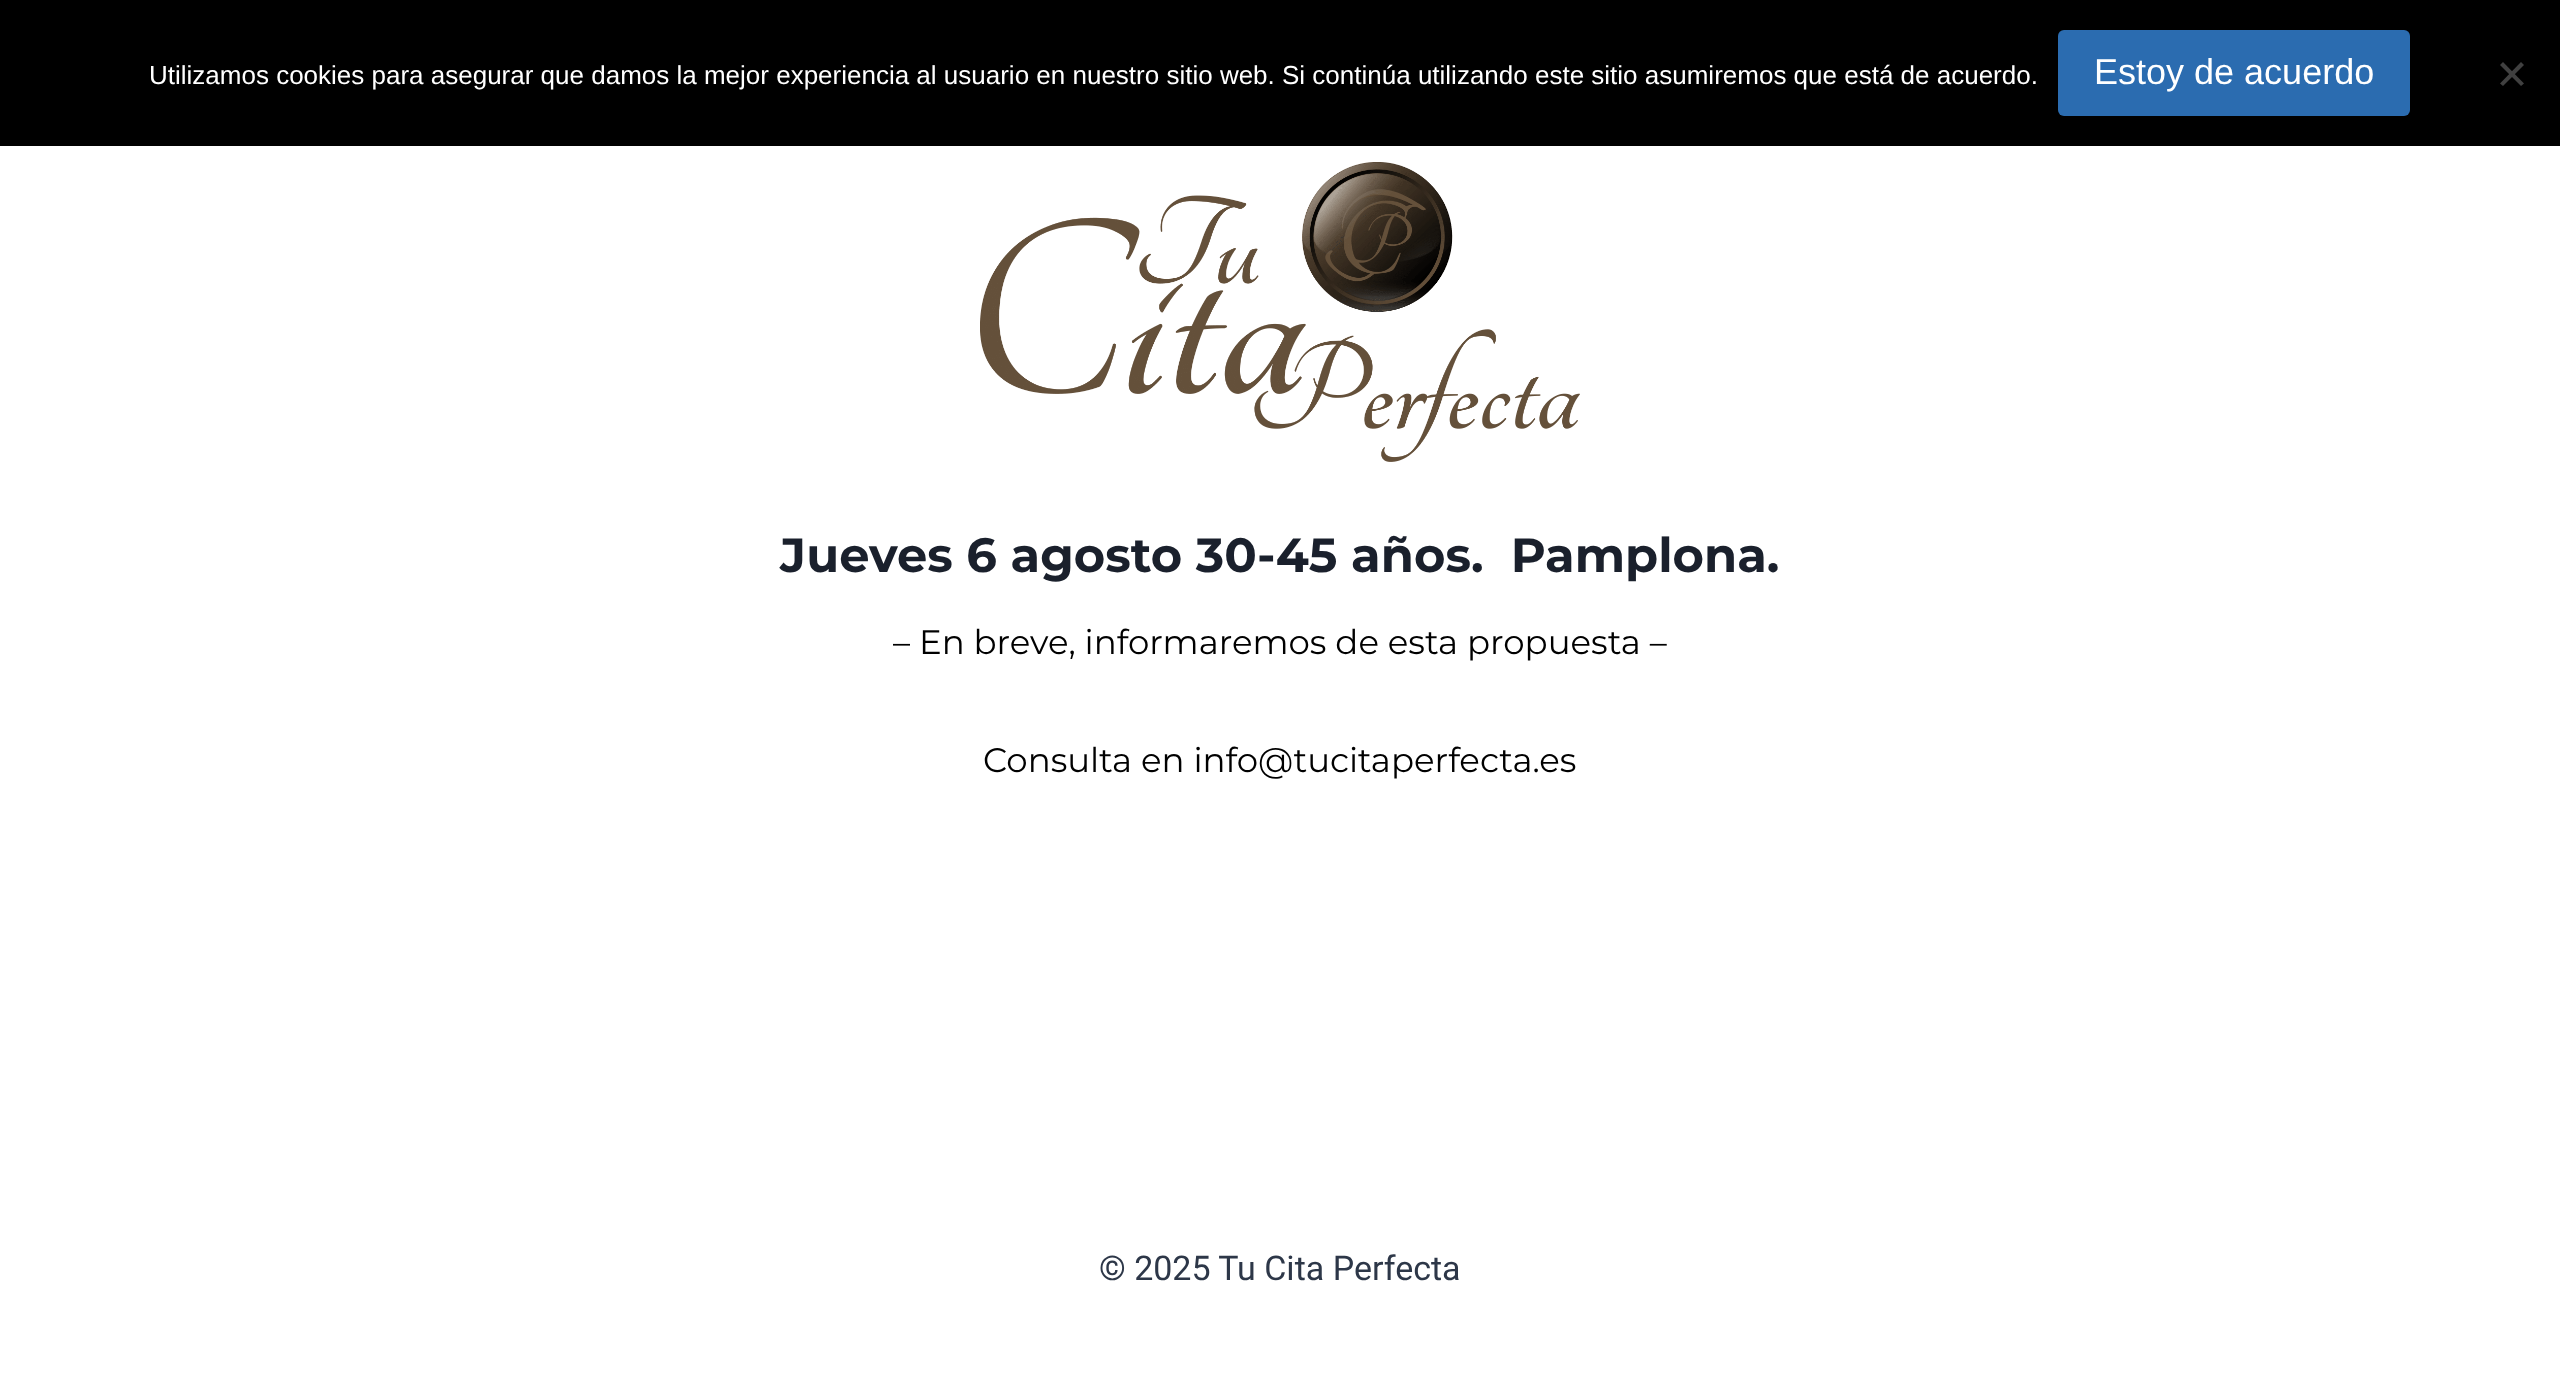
<svg xmlns="http://www.w3.org/2000/svg" xmlns:xlink="http://www.w3.org/1999/xlink" width="2560" height="1390" viewBox="0 0 2560 1390">
<style>
.cls-1{font:26px Liberation Sans;fill:#ffffff}
.cls-2{font:36px Liberation Sans;fill:#ffffff}
.cls-3{font:bold 48px Montserrat;fill:#1a202c}
.cls-4{font:34px Montserrat;fill:#000000}
.cls-5{font:34px Roboto;fill:#2d3748}
</style>
<rect width="100%" height="100%" fill="#ffffff"/>
<rect fill="#000000" x="0" y="0" width="2560" height="146"/>
<rect fill="#2b6cb0" x="2058" y="30" width="352" height="86" rx="6"/>
<path fill="#404040" d="M2521 62L2524 65L2503 86L2500 83.5Z"/>
<path fill="#404040" d="M2500 65L2503 62L2524 83.5L2521 86Z"/>
<image xlink:href="image0.png" x="980" y="162" width="600" height="300"/>
<text class="cls-1" x="149" y="84">Utilizamos cookies para asegurar que damos la mejor experiencia al usuario en nuestro sitio web. Si continúa utilizando este sitio asumiremos que está de acuerdo.</text>
<text class="cls-2" x="2094" y="84">Estoy de acuerdo</text>
<text class="cls-3" xml:space="preserve" x="780" y="572">Jueves 6 agosto 30-45 años.  Pamplona.</text>
<text class="cls-4" x="893" y="654">– En breve, informaremos de esta propuesta –</text>
<text class="cls-4" x="983" y="772">Consulta en info@tucitaperfecta.es</text>
<text class="cls-5" x="1099" y="1280">© 2025 Tu Cita Perfecta</text>
</svg>
